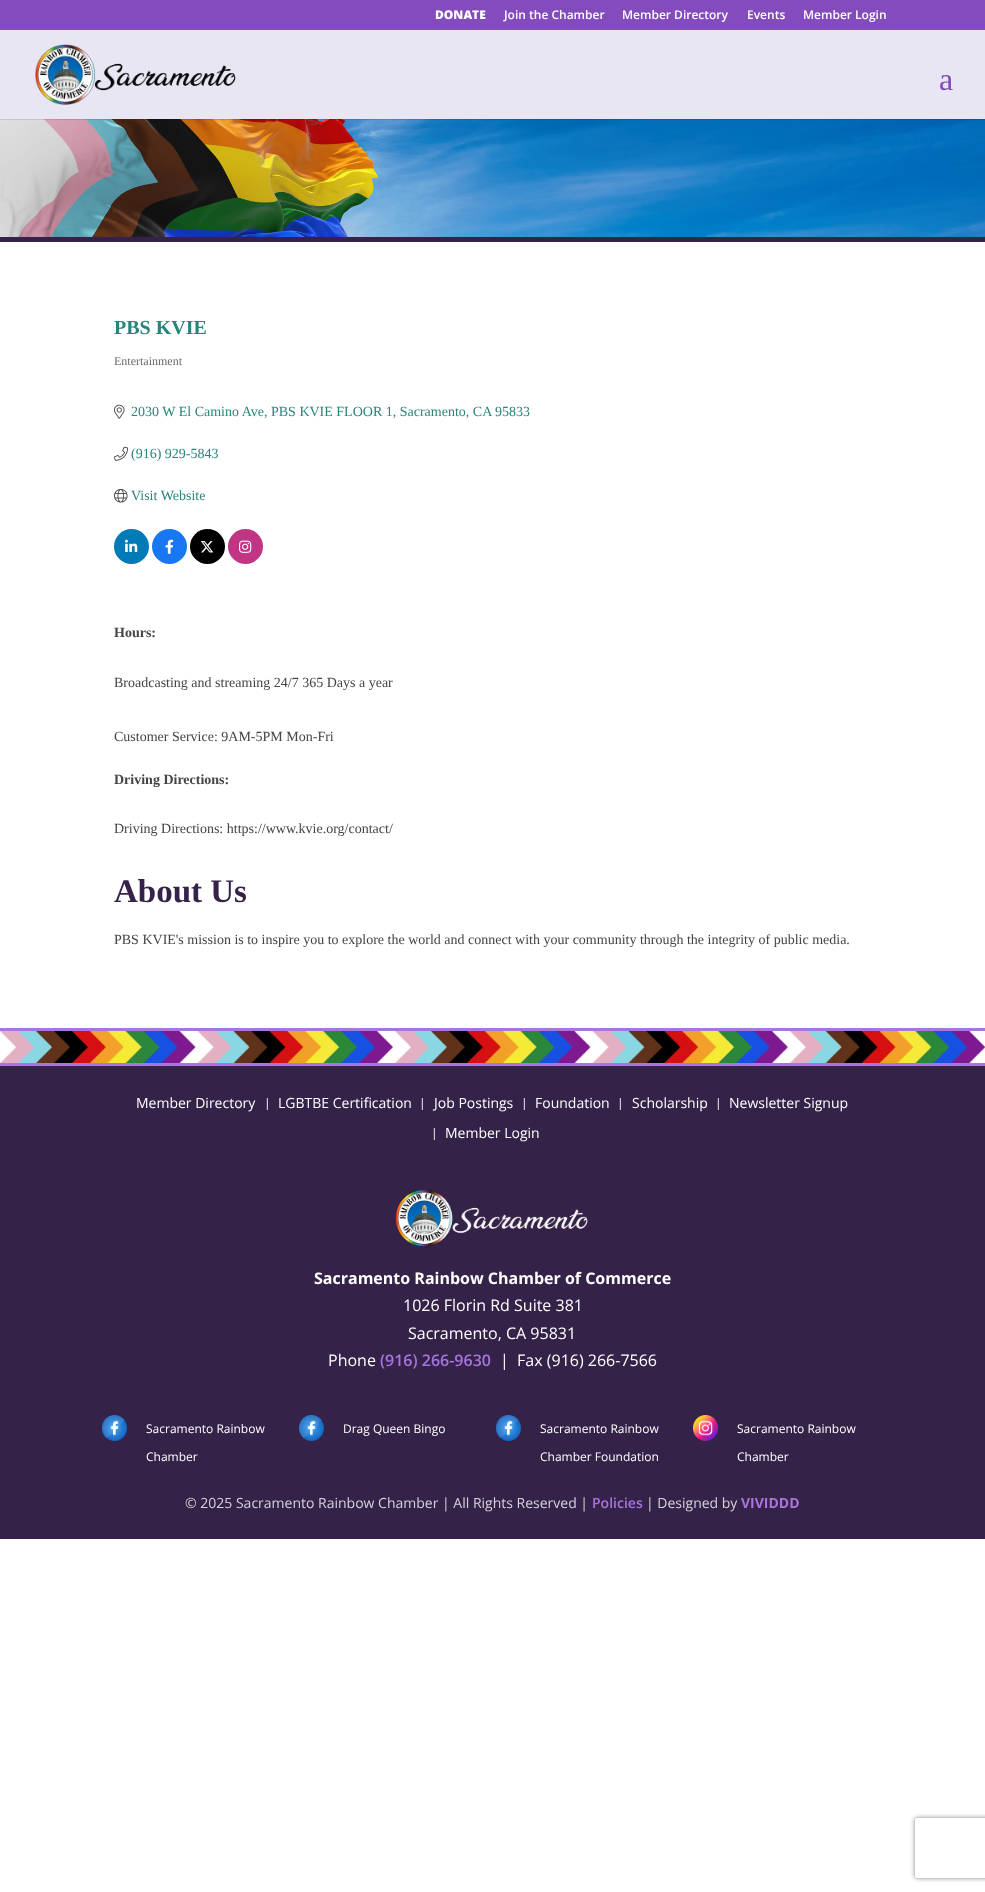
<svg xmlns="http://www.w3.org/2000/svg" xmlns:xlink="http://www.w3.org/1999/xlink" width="985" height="1892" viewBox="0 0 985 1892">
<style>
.cls-1{font:800 12px Open Sans;fill:#ffffff}
.cls-2{font:600 12px Open Sans;fill:#ffffff}
.cls-3{font:32px Liberation Serif;fill:#834bbc}
.cls-4{font:bold 20px Liberation Serif;fill:#28857b}
.cls-5{font:12px Liberation Serif;fill:#696969}
.cls-6{font:14px Liberation Serif;fill:#28857b}
.cls-7{font:bold 14px Liberation Serif;fill:#444444}
.cls-8{font:14px Liberation Serif;fill:#444444}
.cls-9{font:bold 33px Liberation Serif;fill:#342249}
.cls-10{font:14px Open Sans;fill:#ffffff}
.cls-11{font:12px Open Sans;fill:#ffffff}
.cls-12{font:bold 16px Open Sans;fill:#ffffff}
.cls-13{font:16px Open Sans;fill:#ffffff}
.cls-14{font:600 16px Open Sans;fill:#a775dd}
.cls-15{font:14px Open Sans;fill:#d6d3db}
.cls-16{font:600 14px Open Sans;fill:#a775dd}
.cls-17{font:bold 14px Open Sans;fill:#a775dd}
</style>
<defs>
<clipPath id="clip1"><path d="M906 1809H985V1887H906ZM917 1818H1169C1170 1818 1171 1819 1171 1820V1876C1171 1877 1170 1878 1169 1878H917C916 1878 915 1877 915 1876V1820C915 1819 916 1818 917 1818Z" clip-rule="evenodd"/></clipPath>
</defs>
<rect width="100%" height="100%" fill="#ffffff"/>
<rect fill="#834bbc" x="0" y="0" width="985" height="30"/>
<image xlink:href="image1.png" x="0" y="119" width="985" height="118"/>
<rect fill="#000000" fill-opacity="0.1" x="0" y="119" width="985" height="1"/>
<rect fill="#e8e6f2" x="0" y="30" width="985" height="89"/>
<image xlink:href="image0.png" x="35" y="44" width="201" height="61"/>
<rect fill="#342249" x="0" y="237" width="985" height="5"/>
<image xlink:href="image2.png" x="114" y="404" width="11" height="15"/>
<image xlink:href="image3.png" x="114" y="446" width="14" height="15"/>
<image xlink:href="image4.png" x="114" y="489" width="14" height="14"/>
<circle fill="#007bb5" cx="131.5" cy="546.5" r="17.5"/>
<image xlink:href="image5.png" x="125" y="539" width="13" height="13"/>
<circle fill="#1877f2" cx="169.5" cy="546.5" r="17.5"/>
<image xlink:href="image6.png" x="165" y="539" width="9" height="15"/>
<circle fill="#000000" cx="207.5" cy="546.5" r="17.5"/>
<image xlink:href="image7.png" x="200" y="541" width="14" height="12"/>
<circle fill="#c13584" cx="245.5" cy="546.5" r="17.5"/>
<image xlink:href="image8.png" x="239" y="540" width="13" height="13"/>
<rect fill="#a775dd" x="0" y="1028" width="985" height="3"/>
<rect fill="#a775dd" x="0" y="1063" width="985" height="3"/>
<image xlink:href="image9.png" x="0" y="1031" width="985" height="32"/>
<rect fill="#342249" x="0" y="1066" width="985" height="473"/>
<image xlink:href="image10.png" x="395" y="1189" width="193" height="58"/>
<image xlink:href="image11.png" x="102" y="1415" width="25" height="26"/>
<image xlink:href="image11.png" x="299" y="1415" width="25" height="26"/>
<image xlink:href="image12.png" x="496" y="1415" width="25" height="26"/>
<image xlink:href="image13.png" x="693" y="1415" width="25" height="26"/>
<g clip-path="url(#clip1)">
<rect fill="#808080" filter="blur(2.5px)" x="915" y="1818" width="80" height="60" rx="2"/>
</g>
<text class="cls-1" x="435" y="19">DONATE</text>
<text class="cls-2" x="504" y="19">Join the Chamber</text>
<text class="cls-2" x="622" y="19">Member Directory</text>
<text class="cls-2" x="747" y="19">Events</text>
<text class="cls-2" x="803" y="19">Member Login</text>
<text class="cls-3" x="939" y="90">a</text>
<text class="cls-4" x="114" y="334">PBS KVIE</text>
<text class="cls-5" x="114" y="365">Entertainment</text>
<text class="cls-6" x="131" y="416">2030 W El Camino Ave, PBS KVIE FLOOR 1, Sacramento, CA</text>
<text class="cls-6" x="495" y="416">95833</text>
<text class="cls-6" x="131" y="458">(916) 929-5843</text>
<text class="cls-6" x="131" y="500">Visit Website</text>
<text class="cls-7" x="114" y="637">Hours:</text>
<text class="cls-8" x="114" y="687">Broadcasting and streaming 24/7 365 Days a year</text>
<text class="cls-8" x="114" y="741">Customer Service: 9AM-5PM Mon-Fri</text>
<text class="cls-7" x="114" y="784">Driving Directions:</text>
<text class="cls-8" x="114" y="833">Driving Directions: https://www.kvie.org/contact/</text>
<text class="cls-9" x="114" y="902">About Us</text>
<text class="cls-8" x="114" y="944">PBS KVIE's mission is to inspire you to explore the world and connect with your community through the integrity of public media.</text>
<text class="cls-10" x="136" y="1108">Member Directory</text>
<text class="cls-11" x="264" y="1107">|</text>
<text class="cls-10" x="278" y="1108">LGBTBE Certification</text>
<text class="cls-11" x="419" y="1107">|</text>
<text class="cls-10" x="434" y="1108">Job Postings</text>
<text class="cls-11" x="521" y="1107">|</text>
<text class="cls-10" x="535" y="1108">Foundation</text>
<text class="cls-11" x="617" y="1107">|</text>
<text class="cls-10" x="632" y="1108">Scholarship</text>
<text class="cls-11" x="715" y="1107">|</text>
<text class="cls-10" x="729" y="1108">Newsletter Signup</text>
<text class="cls-11" x="431" y="1137">|</text>
<text class="cls-10" x="445" y="1138">Member Login</text>
<text class="cls-12" x="314" y="1284">Sacramento Rainbow Chamber of Commerce</text>
<text class="cls-13" x="403" y="1311">1026 Florin Rd Suite 381</text>
<text class="cls-13" x="408" y="1339">Sacramento, CA 95831</text>
<text class="cls-13" x="328" y="1366">Phone</text>
<text class="cls-14" x="380" y="1366">(916) 266-9630</text>
<text class="cls-13" xml:space="preserve" x="500" y="1366">|  Fax (916) 266-7566</text>
<text class="cls-11" x="146" y="1433">Sacramento Rainbow</text>
<text class="cls-11" x="146" y="1461">Chamber</text>
<text class="cls-11" x="343" y="1433">Drag Queen Bingo</text>
<text class="cls-11" x="540" y="1433">Sacramento Rainbow</text>
<text class="cls-11" x="540" y="1461">Chamber Foundation</text>
<text class="cls-11" x="737" y="1433">Sacramento Rainbow</text>
<text class="cls-11" x="737" y="1461">Chamber</text>
<text class="cls-15" x="185" y="1508">© 2025 Sacramento Rainbow Chamber | All Rights Reserved |</text>
<text class="cls-16" x="592" y="1508">Policies</text>
<text class="cls-15" x="646" y="1508">| Designed by</text>
<text class="cls-17" x="741" y="1508">VIVIDDD</text>
</svg>
